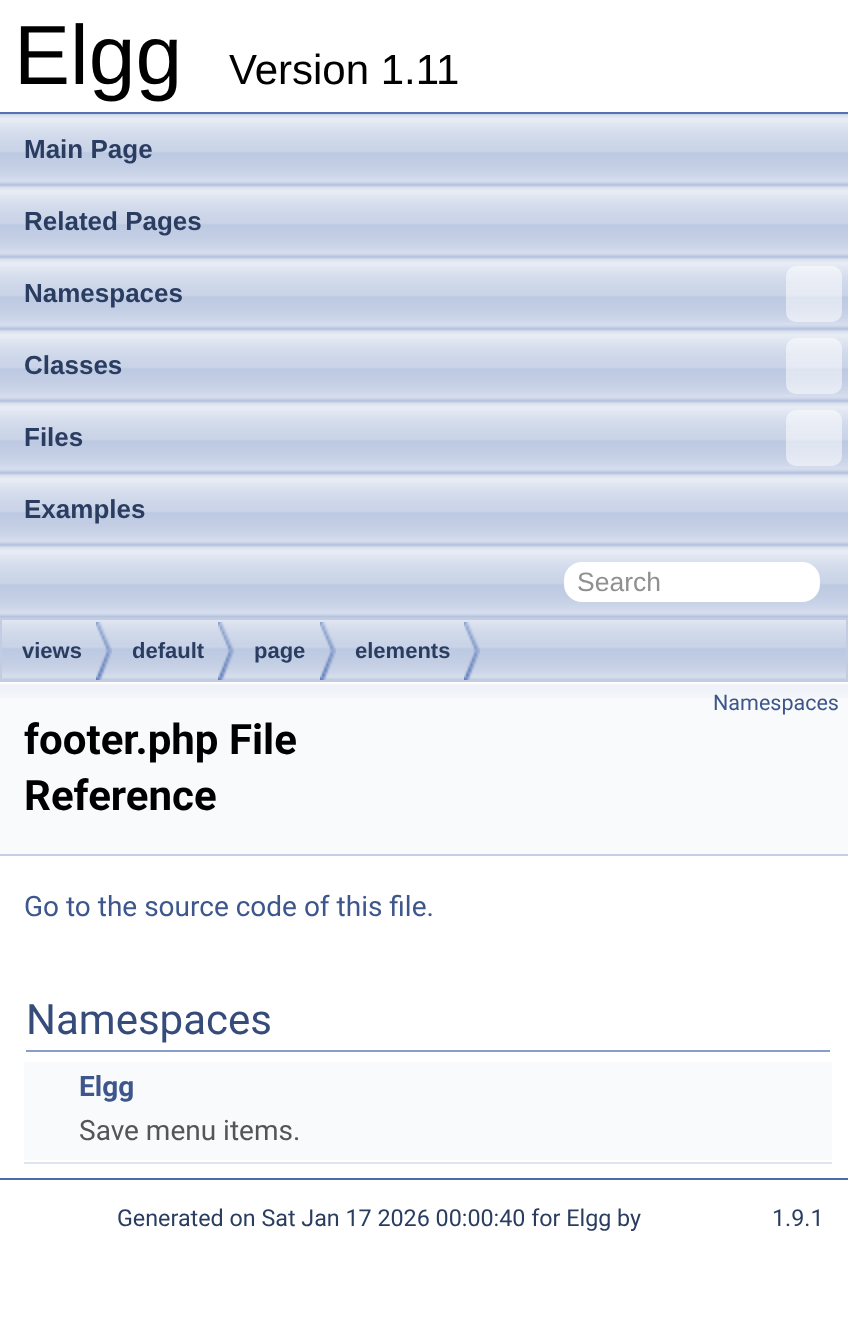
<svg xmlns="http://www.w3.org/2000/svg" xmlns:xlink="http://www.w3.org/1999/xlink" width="848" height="1341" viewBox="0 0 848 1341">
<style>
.cls-1{font:84px Liberation Sans;fill:#000000}
.cls-2{font:42px Liberation Sans;fill:#000000}
.cls-3{font:bold 26px Liberation Sans;fill:#2a3d61}
.cls-4{font:26.5px Liberation Sans;fill:#909090}
.cls-5{font:bold 22px Liberation Sans;fill:#2a3d61}
.cls-6{font:21.5px Roboto;fill:#3d578c}
.cls-7{font:bold 42px Roboto;fill:#000000}
.cls-8{font:28px Roboto;fill:#3d578c}
.cls-9{font:42px Roboto;fill:#354c7b}
.cls-10{font:bold 28px Roboto;fill:#3d578c}
.cls-11{font:28px Roboto;fill:#555555}
.cls-12{font:23.3px Roboto;fill:#2a3d61}
</style>
<rect width="100%" height="100%" fill="#ffffff"/>
<rect fill="#5373b4" x="0" y="112" width="848" height="2"/>
<image xlink:href="image0.png" x="0" y="114" width="848" height="504"/>
<rect fill="#ffffff" fill-opacity="0.5" x="786" y="266" width="56" height="56" rx="10"/>
<rect fill="#ffffff" fill-opacity="0.5" x="786" y="338" width="56" height="56" rx="10"/>
<rect fill="#ffffff" fill-opacity="0.5" x="786" y="410" width="56" height="56" rx="10"/>
<rect fill="#ffffff" x="564" y="562" width="256" height="40" rx="18"/>
<image xlink:href="image1.png" x="2" y="620" width="844" height="60"/>
<rect fill="none" stroke="#c2cde4" stroke-width="2" x="1" y="619" width="846" height="62"/>
<image xlink:href="image2.png" x="96" y="622" width="16" height="58"/>
<image xlink:href="image2.png" x="218" y="622" width="16" height="58"/>
<image xlink:href="image2.png" x="320" y="622" width="16" height="58"/>
<image xlink:href="image2.png" x="464" y="622" width="16" height="58"/>
<rect fill="#f9fafc" x="0" y="698" width="848" height="156"/>
<image xlink:href="image3.png" x="0" y="682" width="848" height="16"/>
<rect fill="#c4cfe5" x="0" y="854" width="848" height="2"/>
<rect fill="#879ecb" x="26" y="1050" width="804" height="2"/>
<rect fill="#f9fafc" x="24" y="1062" width="808" height="46"/>
<rect fill="#f9fafc" x="24" y="1108" width="808" height="52"/>
<rect fill="#dee4f0" x="24" y="1162" width="808" height="2"/>
<rect fill="#4a6aaa" x="0" y="1178" width="848" height="2"/>
<text class="cls-1" x="14" y="84">Elgg</text>
<text class="cls-2" x="229" y="84">Version 1.11</text>
<text class="cls-3" x="24" y="158">Main Page</text>
<text class="cls-3" x="24" y="230">Related Pages</text>
<text class="cls-3" x="24" y="302">Namespaces</text>
<text class="cls-3" x="24" y="374">Classes</text>
<text class="cls-3" x="24" y="446">Files</text>
<text class="cls-3" x="24" y="518">Examples</text>
<text class="cls-4" x="577" y="591">Search</text>
<text class="cls-5" x="22" y="658">views</text>
<text class="cls-5" x="132" y="658">default</text>
<text class="cls-5" x="254" y="658">page</text>
<text class="cls-5" x="355" y="658">elements</text>
<text class="cls-6" x="713" y="710">Namespaces</text>
<text class="cls-7"><tspan x="24" y="754">footer.php File</tspan><tspan x="24" y="810">Reference</tspan></text>
<text class="cls-8" x="24" y="916">Go to the source code of this file.</text>
<text class="cls-9" x="26" y="1034">Namespaces</text>
<text class="cls-10" x="79" y="1096">Elgg</text>
<text class="cls-11" x="79" y="1140">Save menu items.</text>
<text class="cls-12" x="117" y="1226">Generated on Sat Jan 17 2026 00:00:40 for Elgg by</text>
<text class="cls-12" x="772" y="1226">1.9.1</text>
</svg>
